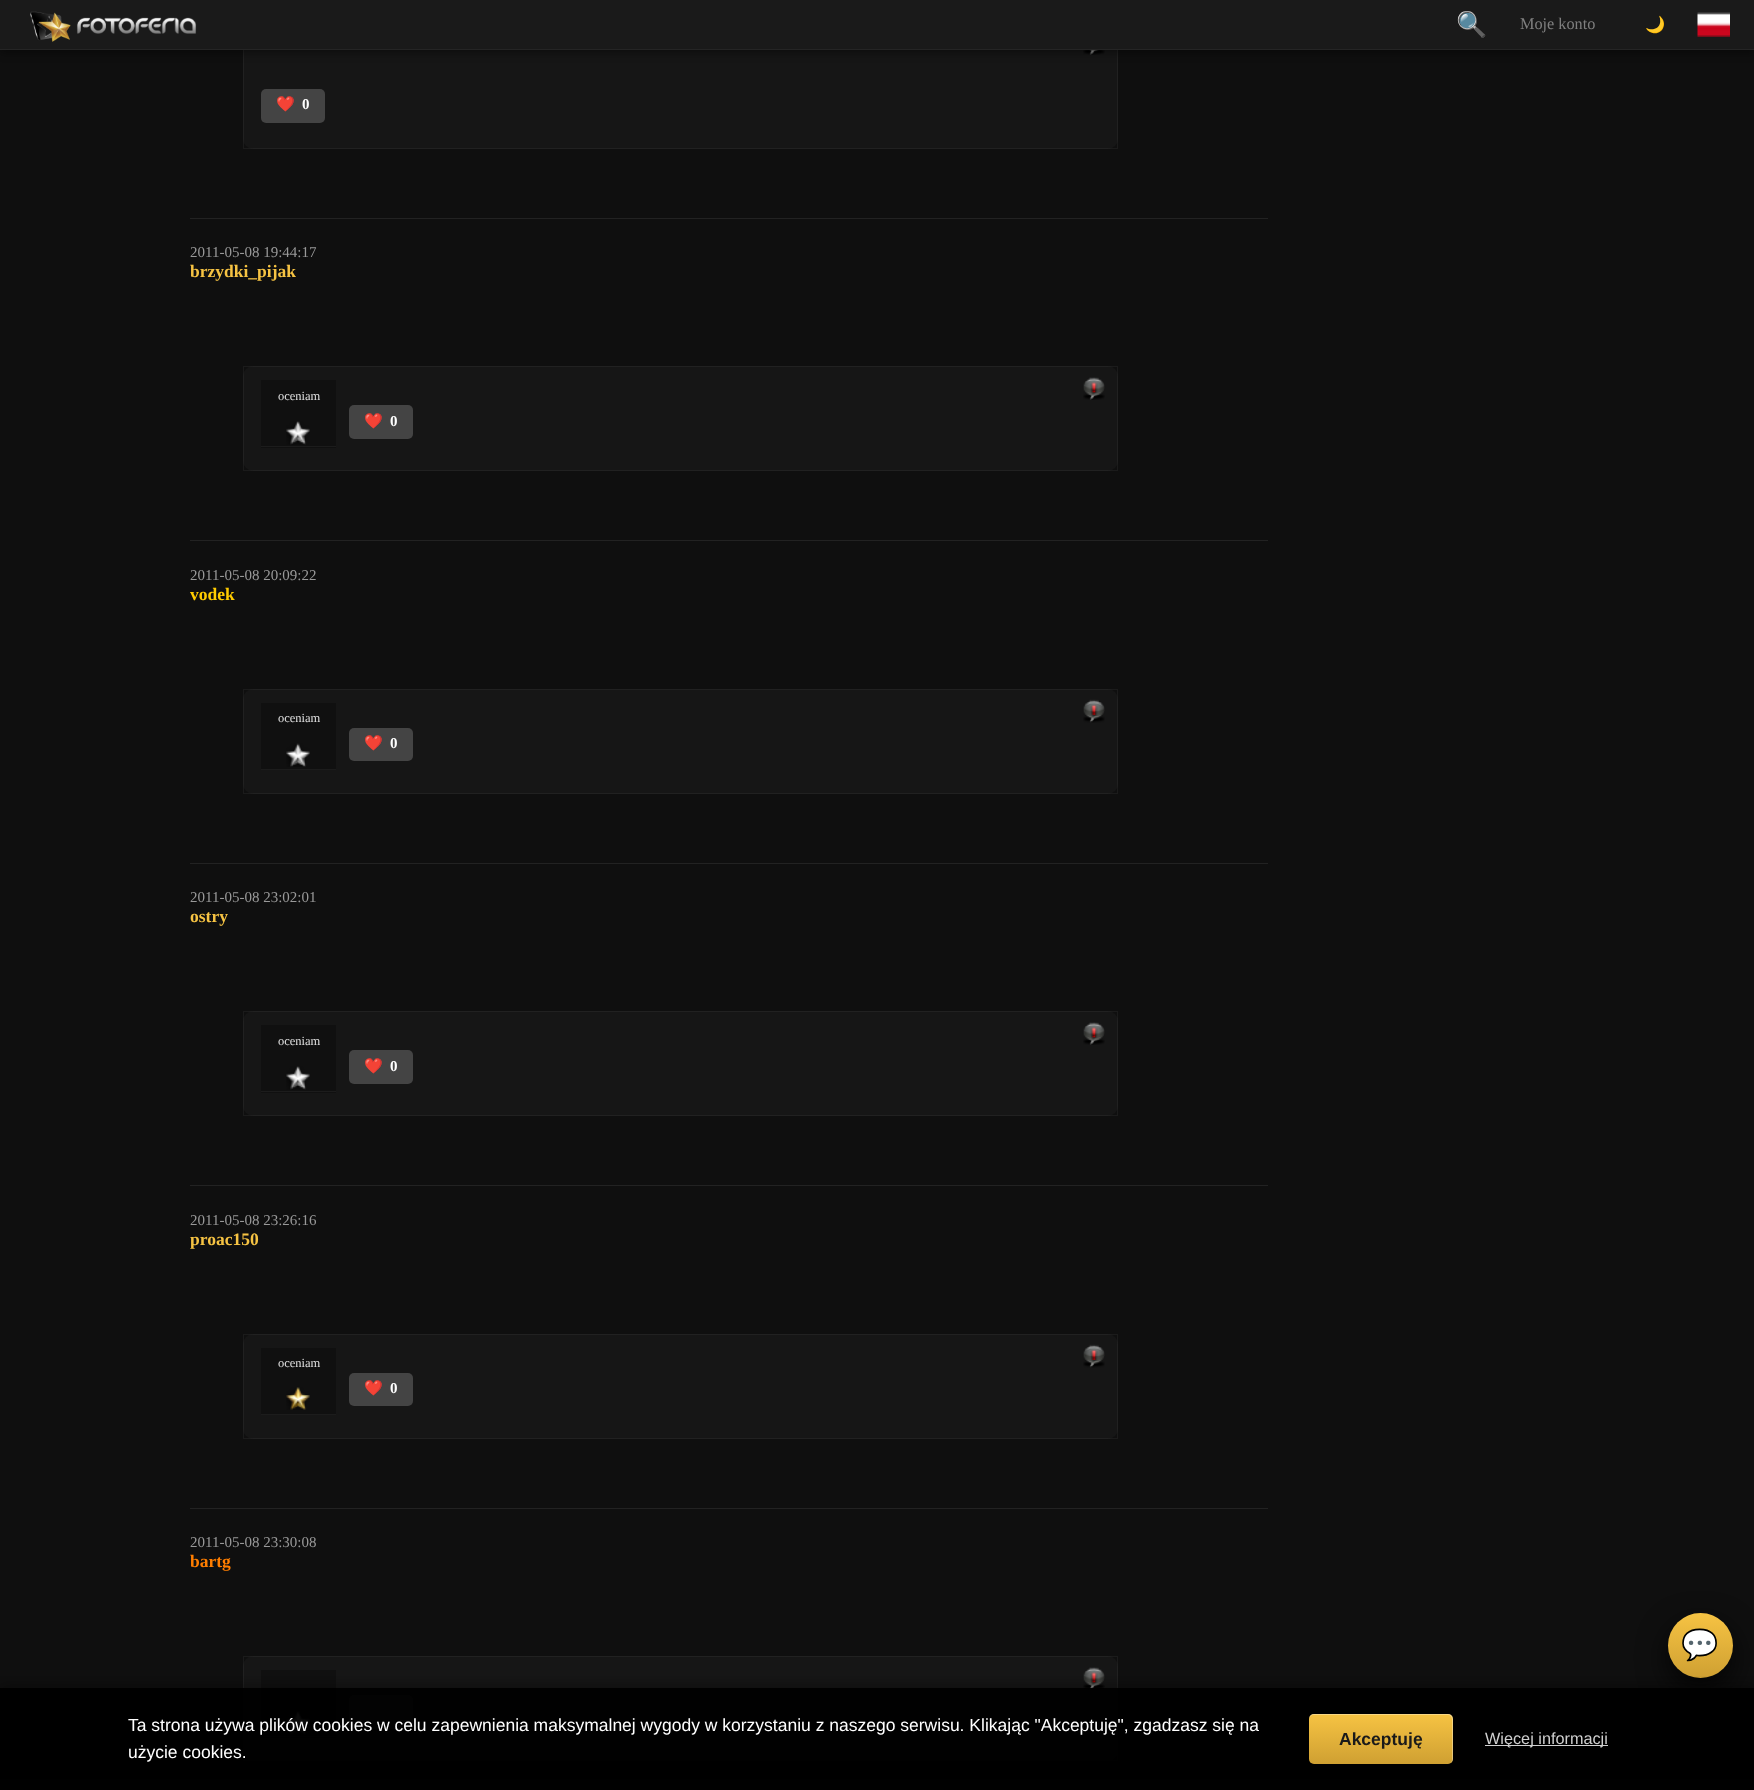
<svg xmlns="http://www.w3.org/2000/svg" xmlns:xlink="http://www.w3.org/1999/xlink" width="1754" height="1790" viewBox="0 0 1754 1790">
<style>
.cls-1{font:25px Noto Color Emoji;fill:#ffffff}
.cls-2{font:16.25px Liberation Serif;fill:#7f7f7f}
.cls-3{font:16.25px Noto Color Emoji;fill:#7f7f7f}
.cls-4{font:15px Noto Color Emoji;fill:#ffffff}
.cls-5{font:bold 15px Liberation Serif;fill:#ffffff}
.cls-6{font:15px Liberation Serif;fill:#999999}
.cls-7{font:bold 17.5px Liberation Serif;fill:#f6c343}
.cls-8{font:12.5px Liberation Serif;fill:#e0e0e0}
.cls-9{font:bold 17.5px Liberation Serif;fill:#ffcc00}
.cls-10{font:bold 17.5px Liberation Serif;fill:#ff7e00}
.cls-11{font:30px Noto Color Emoji;fill:#1a1a1a}
.cls-12{font:17.5px Liberation Sans;fill:#ffffff}
.cls-13{font:bold 17.5px Liberation Sans;fill:#1a1a1a}
.cls-14{font:16.25px Liberation Sans;fill:#d0d0d0}
</style>
<defs>
<linearGradient id="g1" gradientUnits="userSpaceOnUse" x1="1700" y1="1613" x2="1700" y2="1678"><stop offset="0" stop-color="#f6c343"/><stop offset="1" stop-color="#cfa032"/></linearGradient>
<clipPath id="clip1"><rect x="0" y="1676" width="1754" height="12"/></clipPath>
<linearGradient id="g2" gradientUnits="userSpaceOnUse" x1="1381" y1="1714" x2="1381" y2="1764"><stop offset="0" stop-color="#f6c343"/><stop offset="1" stop-color="#cfa032"/></linearGradient>
</defs>
<rect width="100%" height="100%" fill="#0f0f0f"/>
<rect fill="#161616" x="243" y="21" width="875" height="128" rx="10"/>
<rect fill="none" stroke="#ffffff" stroke-opacity="0.05" x="243.5" y="21.5" width="874" height="127"/>
<image xlink:href="image2.png" x="1083" y="50" width="22" height="5"/>
<rect fill="#000000" fill-opacity="0.4" filter="blur(4px)" x="0" y="3" width="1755" height="50"/>
<rect fill="#1a1a1a" x="0" y="0" width="1754" height="49"/>
<rect fill="#252525" x="0" y="49" width="1754" height="1"/>
<image xlink:href="image0.png" x="30" y="11" width="167" height="31"/>
<image xlink:href="image1.png" x="1697" y="12" width="33" height="25"/>
<rect fill="#222222" x="190" y="218" width="1078" height="1"/>
<rect fill="#444444" x="261" y="89" width="64" height="34" rx="5"/>
<rect fill="#222222" x="190" y="540" width="1078" height="1"/>
<rect fill="#161616" x="243" y="366" width="875" height="105" rx="10"/>
<rect fill="none" stroke="#ffffff" stroke-opacity="0.05" x="243.5" y="366.5" width="874" height="104"/>
<rect fill="#101010" x="261" y="380" width="75" height="68"/>
<rect fill="#1c1c1c" x="261" y="446" width="75" height="1"/>
<image xlink:href="image3.png" x="286" y="421" width="24" height="24"/>
<image xlink:href="image4.png" x="1083" y="377" width="22" height="23"/>
<rect fill="#444444" x="349" y="405" width="64" height="34" rx="5"/>
<rect fill="#222222" x="190" y="863" width="1078" height="1"/>
<rect fill="#161616" x="243" y="689" width="875" height="105" rx="10"/>
<rect fill="none" stroke="#ffffff" stroke-opacity="0.05" x="243.5" y="689.5" width="874" height="104"/>
<rect fill="#101010" x="261" y="703" width="75" height="66"/>
<rect fill="#1c1c1c" x="261" y="769" width="75" height="1"/>
<image xlink:href="image5.png" x="286" y="743" width="24" height="24"/>
<image xlink:href="image6.png" x="1083" y="699" width="22" height="24"/>
<rect fill="#444444" x="349" y="728" width="64" height="33" rx="5"/>
<rect fill="#222222" x="190" y="1185" width="1078" height="1"/>
<rect fill="#161616" x="243" y="1011" width="875" height="105" rx="10"/>
<rect fill="none" stroke="#ffffff" stroke-opacity="0.05" x="243.5" y="1011.5" width="874" height="104"/>
<rect fill="#101010" x="261" y="1025" width="75" height="68"/>
<rect fill="#1c1c1c" x="261" y="1091" width="75" height="1"/>
<image xlink:href="image3.png" x="286" y="1066" width="24" height="24"/>
<image xlink:href="image4.png" x="1083" y="1022" width="22" height="23"/>
<rect fill="#444444" x="349" y="1050" width="64" height="34" rx="5"/>
<rect fill="#222222" x="190" y="1508" width="1078" height="1"/>
<rect fill="#161616" x="243" y="1334" width="875" height="105" rx="10"/>
<rect fill="none" stroke="#ffffff" stroke-opacity="0.05" x="243.5" y="1334.5" width="874" height="104"/>
<rect fill="#101010" x="261" y="1348" width="75" height="66"/>
<rect fill="#1c1c1c" x="261" y="1414" width="75" height="1"/>
<image xlink:href="image7.png" x="286" y="1387" width="24" height="23"/>
<image xlink:href="image6.png" x="1083" y="1344" width="22" height="24"/>
<rect fill="#444444" x="349" y="1373" width="64" height="33" rx="5"/>
<rect fill="#161616" x="243" y="1656" width="875" height="105" rx="10"/>
<rect fill="none" stroke="#ffffff" stroke-opacity="0.05" x="243.5" y="1656.5" width="874" height="104"/>
<rect fill="#101010" x="261" y="1670" width="75" height="68"/>
<rect fill="#1c1c1c" x="261" y="1736" width="75" height="1"/>
<image xlink:href="image8.png" x="286" y="1711" width="24" height="24"/>
<rect fill="#444444" x="349" y="1695" width="64" height="34" rx="5"/>
<image xlink:href="image4.png" x="1083" y="1667" width="22" height="23"/>
<rect fill="#000000" fill-opacity="0.8" filter="blur(15.5px)" x="1668" y="1625" width="65" height="65" rx="32.5"/>
<circle fill="url(#g1)" cx="1700.5" cy="1645.5" r="32.5"/>
<g clip-path="url(#clip1)">
<rect fill="#000000" fill-opacity="0.3" filter="blur(6px)" x="0" y="1685" width="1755" height="103"/>
</g>
<rect fill="#000000" fill-opacity="0.95" x="0" y="1688" width="1754" height="102"/>
<rect fill="url(#g2)" x="1309" y="1714" width="144" height="50" rx="5"/>
<path fill="#ffffff" fill-opacity="0.35" d="M1314 1715H1448C1450 1715 1452 1717 1452 1720V1760L1451 1763C1452 1762 1453 1760 1453 1759V1719C1453 1716 1451 1714 1448 1714H1314C1311 1714 1309 1716 1309 1719V1720C1309 1717 1311 1715 1314 1715Z"/>
<rect fill="#d0d0d0" x="1485" y="1745" width="123" height="1"/>
<text class="cls-1" x="1456" y="33">🔍</text>
<text class="cls-2" x="1520" y="29">Moje konto</text>
<text class="cls-3" x="1645" y="30">🌙</text>
<text class="cls-4" x="276" y="109">❤️</text>
<text class="cls-5" x="302" y="109">0</text>
<text class="cls-6" x="190" y="257">2011-05-08 19:44:17</text>
<text class="cls-7" x="190" y="277">brzydki_pijak</text>
<text class="cls-8" x="278" y="400">oceniam</text>
<text class="cls-4" x="364" y="426">❤️</text>
<text class="cls-5" x="390" y="426">0</text>
<text class="cls-6" x="190" y="580">2011-05-08 20:09:22</text>
<text class="cls-9" x="190" y="600">vodek</text>
<text class="cls-8" x="278" y="722">oceniam</text>
<text class="cls-4" x="364" y="748">❤️</text>
<text class="cls-5" x="390" y="748">0</text>
<text class="cls-6" x="190" y="902">2011-05-08 23:02:01</text>
<text class="cls-7" x="190" y="922">ostry</text>
<text class="cls-8" x="278" y="1045">oceniam</text>
<text class="cls-4" x="364" y="1071">❤️</text>
<text class="cls-5" x="390" y="1071">0</text>
<text class="cls-6" x="190" y="1225">2011-05-08 23:26:16</text>
<text class="cls-7" x="190" y="1245">proac150</text>
<text class="cls-8" x="278" y="1367">oceniam</text>
<text class="cls-4" x="364" y="1393">❤️</text>
<text class="cls-5" x="390" y="1393">0</text>
<text class="cls-6" x="190" y="1547">2011-05-08 23:30:08</text>
<text class="cls-10" x="190" y="1567">bartg</text>
<text class="cls-11" x="1681" y="1655">💬</text>
<text class="cls-12"><tspan x="128" y="1731">Ta strona używa plików cookies w celu zapewnienia maksymalnej wygody w korzystaniu z naszego serwisu. Klikając "Akceptuję", zgadzasz się na</tspan><tspan x="128" y="1758">użycie cookies.</tspan></text>
<text class="cls-13" x="1339" y="1745">Akceptuję</text>
<text class="cls-14" x="1485" y="1744">Więcej informacji</text>
</svg>
